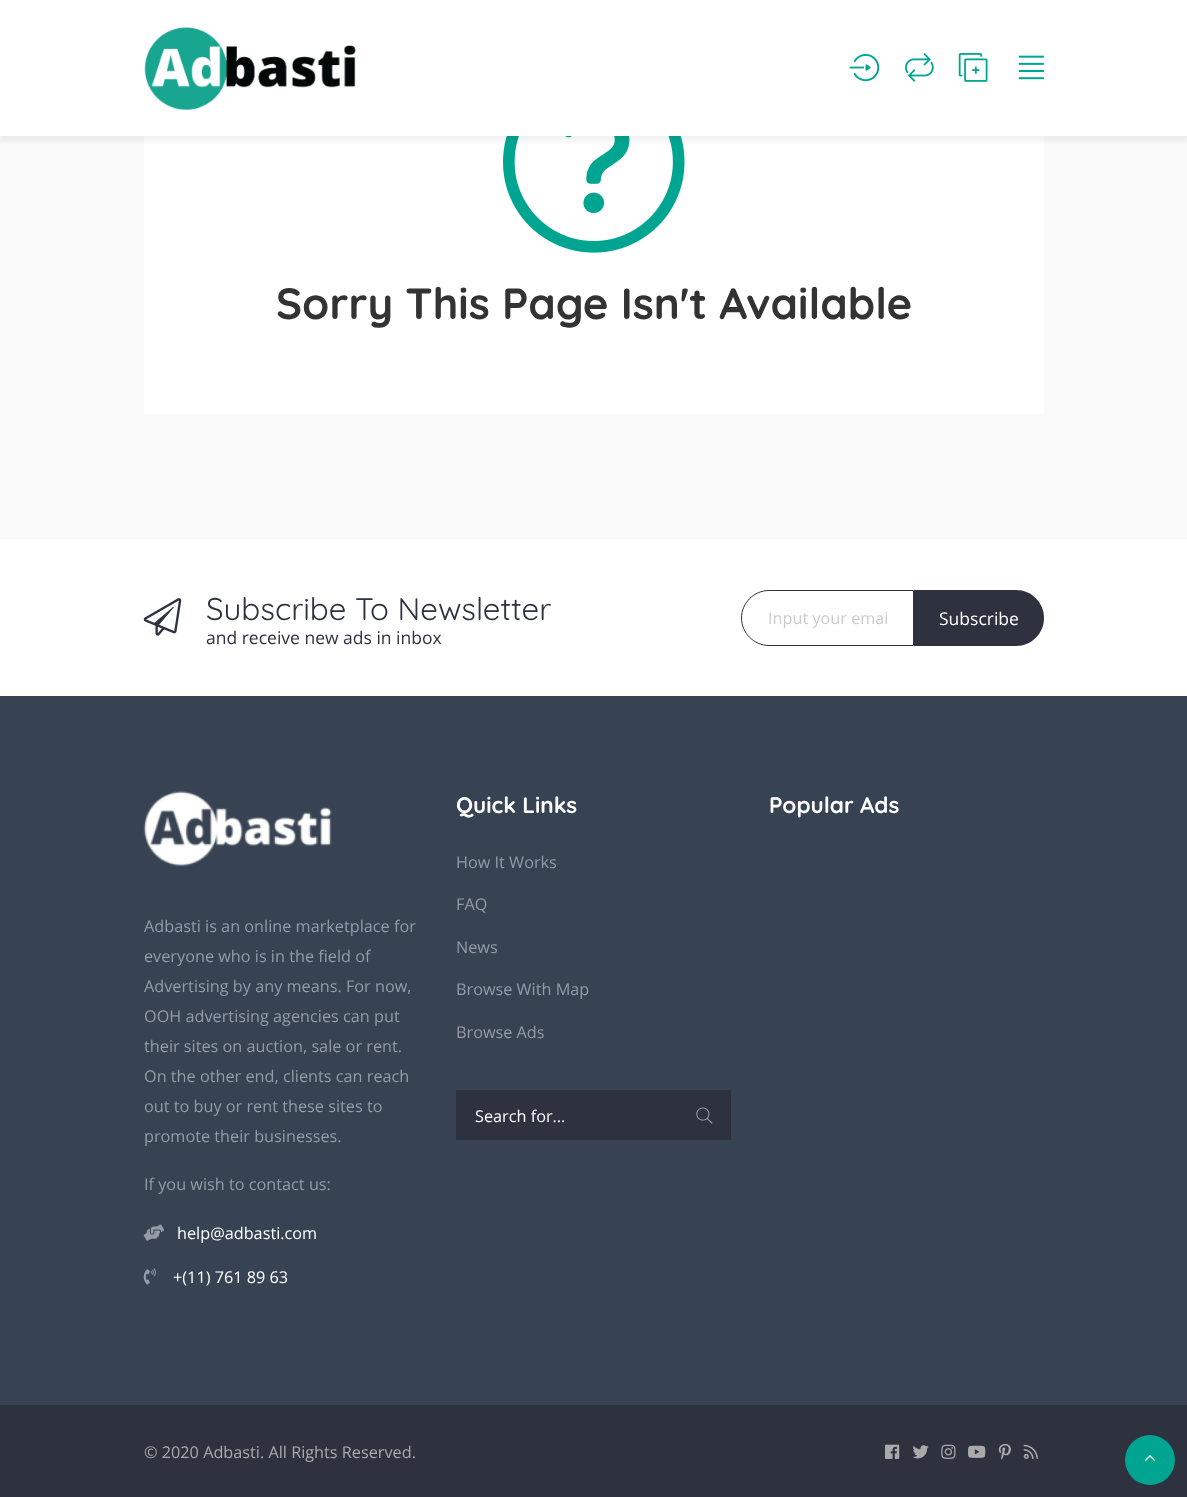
<svg xmlns="http://www.w3.org/2000/svg" xmlns:xlink="http://www.w3.org/1999/xlink" width="1187" height="1497" viewBox="0 0 1187 1497">
<style>
.cls-1{font:bold 43.75px Quicksand;fill:#333333}
.cls-2{font:31.25px Quicksand;fill:#2d323e}
.cls-3{font:17.5px Open Sans;fill:#2d323e}
.cls-4{font:16.25px Open Sans;fill:#cccccc}
.cls-5{font:17.5px Open Sans;fill:#ffffff}
.cls-6{font:bold 22.5px Quicksand;fill:#ffffff}
.cls-7{font:16.25px Open Sans;fill:#959ba7}
.cls-8{font:16.25px Open Sans;fill:#ffffff}
.cls-9{font:16.25px Open Sans;fill:#aaaaaa}
</style>
<rect width="100%" height="100%" fill="#f9f9f9"/>
<rect fill="#ffffff" x="144" y="-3" width="900" height="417" rx="2.5"/>
<image xlink:href="image5.png" x="503" y="136" width="182" height="117"/>
<rect fill="#171717" fill-opacity="0.06" filter="blur(2.5px)" x="0" y="5" width="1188" height="136"/>
<rect fill="#ffffff" x="0" y="0" width="1187" height="136"/>
<image xlink:href="image0.png" x="144" y="27" width="212" height="84"/>
<image xlink:href="image1.png" x="849" y="53" width="31" height="29"/>
<image xlink:href="image2.png" x="905" y="53" width="29" height="29"/>
<image xlink:href="image3.png" x="958" y="53" width="30" height="29"/>
<image xlink:href="image4.png" x="1018" y="55" width="26" height="25"/>
<rect fill="#ffffff" x="0" y="539" width="1187" height="157"/>
<image xlink:href="image6.png" x="143" y="598" width="39" height="38"/>
<path fill="none" stroke="#2d323e" d="M769 590.5H913.5V645.5H769C754 645.5 741.5 633 741.5 618C741.5 603 754 590.5 769 590.5Z"/>
<path fill="#2d323e" d="M914 590H1016C1031.5 590 1044 602.5 1044 618C1044 633.5 1031.5 646 1016 646H914Z"/>
<rect fill="#374252" x="0" y="696" width="1187" height="709"/>
<rect fill="#2d323e" x="456" y="1090" width="275" height="50"/>
<image xlink:href="image7.png" x="696" y="1107" width="17" height="17"/>
<image xlink:href="image8.png" x="143" y="791" width="189" height="76"/>
<image xlink:href="image9.png" x="143" y="1224" width="21" height="17"/>
<image xlink:href="image10.png" x="143" y="1268" width="13" height="17"/>
<rect fill="#2d323e" x="0" y="1405" width="1187" height="92"/>
<image xlink:href="image11.png" x="885" y="1444" width="15" height="15"/>
<image xlink:href="image12.png" x="913" y="1445" width="16" height="14"/>
<image xlink:href="image13.png" x="941" y="1444" width="15" height="15"/>
<image xlink:href="image14.png" x="968" y="1445" width="18" height="13"/>
<image xlink:href="image15.png" x="998" y="1443" width="13" height="17"/>
<image xlink:href="image16.png" x="1023" y="1444" width="15" height="15"/>
<circle fill="#00a591" cx="1150" cy="1460" r="25"/>
<image xlink:href="image17.png" x="1145" y="1455" width="10" height="6"/>
<text class="cls-1" x="276" y="319">Sorry This Page Isn't Available</text>
<text class="cls-2" x="206" y="620">Subscribe To Newsletter</text>
<text class="cls-3" x="206" y="644">and receive new ads in inbox</text>
<text class="cls-4" x="768" y="624">Input your emai</text>
<text class="cls-5" x="939" y="625">Subscribe</text>
<text class="cls-6" x="456" y="813">Quick Links</text>
<text class="cls-7" x="456" y="868">How It Works</text>
<text class="cls-7" x="456" y="910">FAQ</text>
<text class="cls-7" x="456" y="953">News</text>
<text class="cls-7" x="456" y="995">Browse With Map</text>
<text class="cls-7" x="456" y="1038">Browse Ads</text>
<text class="cls-8" x="475" y="1122">Search for...</text>
<text class="cls-6" x="769" y="813">Popular Ads</text>
<text class="cls-7"><tspan x="144" y="932">Adbasti is an online marketplace for</tspan><tspan x="144" y="962">everyone who is in the field of</tspan><tspan x="144" y="992">Advertising by any means. For now,</tspan><tspan x="144" y="1022">OOH advertising agencies can put</tspan><tspan x="144" y="1052">their sites on auction, sale or rent.</tspan><tspan x="144" y="1082">On the other end, clients can reach</tspan><tspan x="144" y="1112">out to buy or rent these sites to</tspan><tspan x="144" y="1142">promote their businesses.</tspan></text>
<text class="cls-7" x="144" y="1190">If you wish to contact us:</text>
<text class="cls-8" x="177" y="1239">help@adbasti.com</text>
<text class="cls-8" x="173" y="1283">+(11) 761 89 63</text>
<text class="cls-9" x="144" y="1458">© 2020 Adbasti. All Rights Reserved.</text>
</svg>
